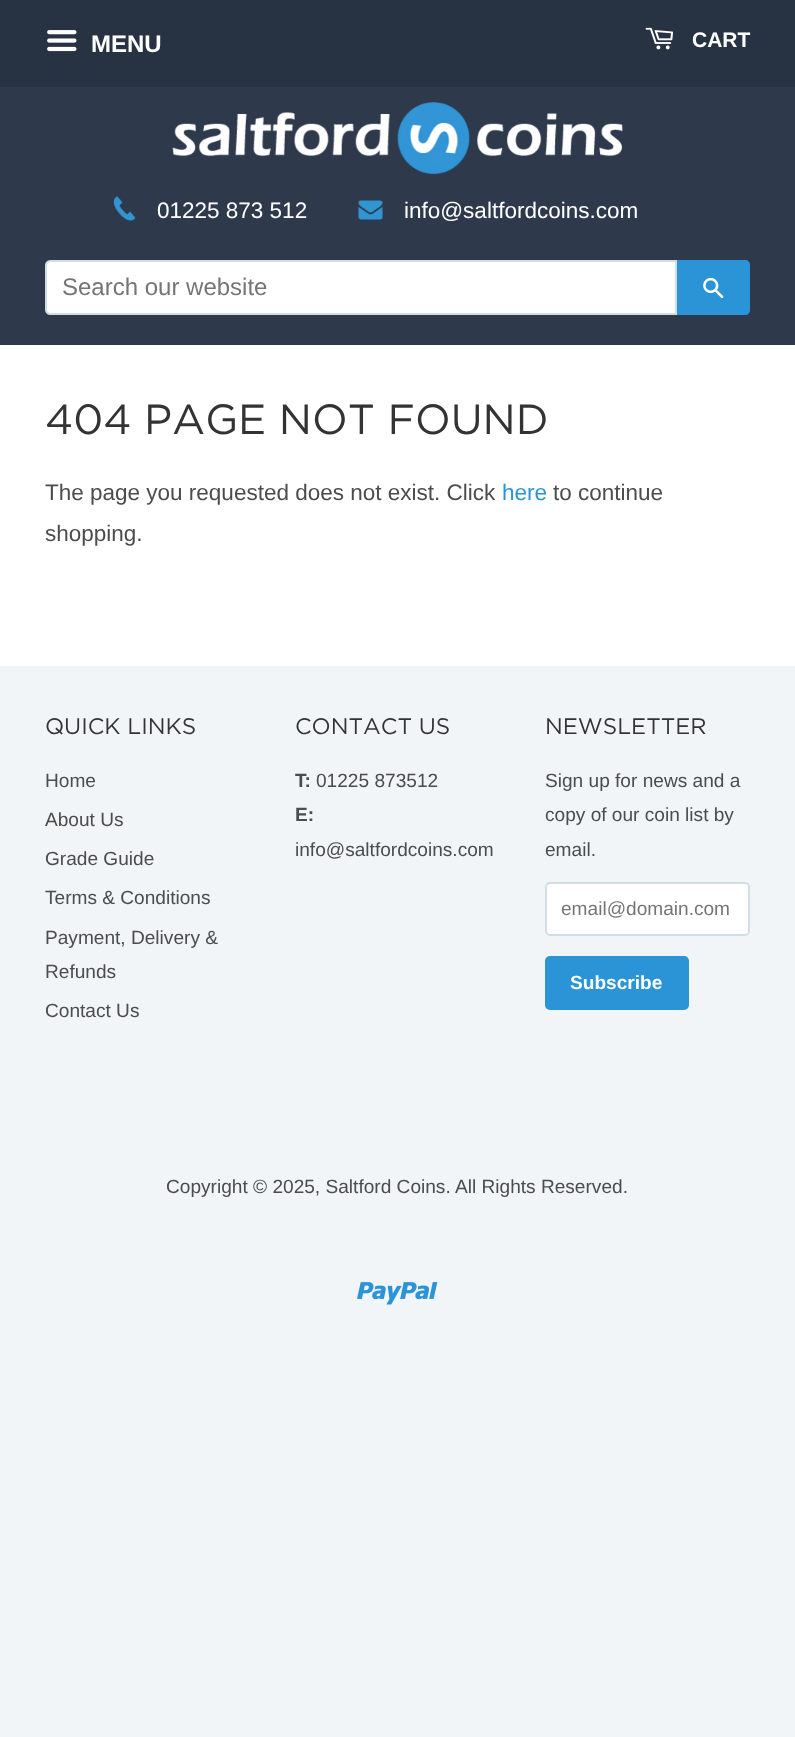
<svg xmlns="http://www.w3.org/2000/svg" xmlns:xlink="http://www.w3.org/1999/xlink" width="795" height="1737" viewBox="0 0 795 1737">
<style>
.cls-1{font:bold 24px Liberation Sans;fill:#ffffff}
.cls-2{font:bold 21px Liberation Sans;fill:#ffffff}
.cls-3{font:22.5px Liberation Sans;fill:#ffffff}
.cls-4{font:24px Liberation Sans;fill:#757575}
.cls-5{font:42px Gotham;fill:#333333}
.cls-6{font:22.5px Liberation Sans;fill:#4c4c4c}
.cls-7{font:22.5px Liberation Sans;fill:#2a94d6}
.cls-8{font:22.5px Gotham;fill:#333333}
.cls-9{font:19.1px Liberation Sans;fill:#4c4c4c}
.cls-10{font:bold 19.1px Liberation Sans;fill:#4c4c4c}
.cls-11{font:19.1px Liberation Sans;fill:#757575}
.cls-12{font:bold 19.1px Liberation Sans;fill:#ffffff}
</style>
<rect width="100%" height="100%" fill="#f1f5f7"/>
<rect fill="#ffffff" x="0" y="345" width="795" height="321"/>
<rect fill="#273242" x="0" y="0" width="795" height="87"/>
<image xlink:href="image0.png" x="47" y="30" width="30" height="22"/>
<image xlink:href="image1.png" x="645" y="27" width="29" height="23"/>
<rect fill="#2e3a4c" x="0" y="87" width="795" height="258"/>
<image xlink:href="image2.png" x="172" y="102" width="451" height="72"/>
<image xlink:href="image3.png" x="113" y="196" width="23" height="25"/>
<image xlink:href="image4.png" x="358" y="200" width="25" height="20"/>
<path fill="#ffffff" stroke="#d1dee4" stroke-width="2" d="M50 261H676V314H50C48 314 46 312 46 310V265C46 263 48 261 50 261Z"/>
<path fill="#2a94d6" d="M677 260H745C748 260 750 262 750 265V310C750 313 748 315 745 315H677Z"/>
<image xlink:href="image5.png" x="703" y="277" width="21" height="21"/>
<rect fill="#ffffff" stroke="#d1dee4" stroke-width="2" x="546" y="883" width="203" height="52" rx="4"/>
<rect fill="#2a94d6" x="545" y="956" width="144" height="54" rx="5"/>
<image xlink:href="image6.png" x="357" y="1282" width="81" height="23"/>
<text class="cls-1" x="91" y="52">MENU</text>
<text class="cls-2" x="692" y="47">CART</text>
<text class="cls-3" x="157" y="218">01225 873 512</text>
<text class="cls-3" x="404" y="218">info@saltfordcoins.com</text>
<text class="cls-4" x="62" y="295">Search our website</text>
<text class="cls-5" x="45" y="434">404 PAGE NOT FOUND</text>
<text class="cls-6" x="45" y="500">The page you requested does not exist. Click</text>
<text class="cls-7" x="502" y="500">here</text>
<text class="cls-6" x="553" y="500">to continue</text>
<text class="cls-6" x="45" y="541">shopping.</text>
<text class="cls-8" x="45" y="734">QUICK LINKS</text>
<text class="cls-9" x="45" y="787">Home</text>
<text class="cls-9" x="45" y="826">About Us</text>
<text class="cls-9" x="45" y="865">Grade Guide</text>
<text class="cls-9" x="45" y="904">Terms &amp; Conditions</text>
<text class="cls-9"><tspan x="45" y="944">Payment, Delivery &amp;</tspan><tspan x="45" y="978">Refunds</tspan></text>
<text class="cls-9" x="45" y="1017">Contact Us</text>
<text class="cls-8" x="295" y="734">CONTACT US</text>
<text class="cls-10" x="295" y="787">T:</text>
<text class="cls-9" x="316" y="787">01225 873512</text>
<text class="cls-10" x="295" y="821">E:</text>
<text class="cls-9" x="295" y="856">info@saltfordcoins.com</text>
<text class="cls-8" x="545" y="734">NEWSLETTER</text>
<text class="cls-9"><tspan x="545" y="787">Sign up for news and a</tspan><tspan x="545" y="821">copy of our coin list by</tspan><tspan x="545" y="856">email.</tspan></text>
<text class="cls-11" x="561" y="915">email@domain.com</text>
<text class="cls-12" x="570" y="989">Subscribe</text>
<text class="cls-9" x="166" y="1193">Copyright © 2025, Saltford Coins. All Rights Reserved.</text>
</svg>
